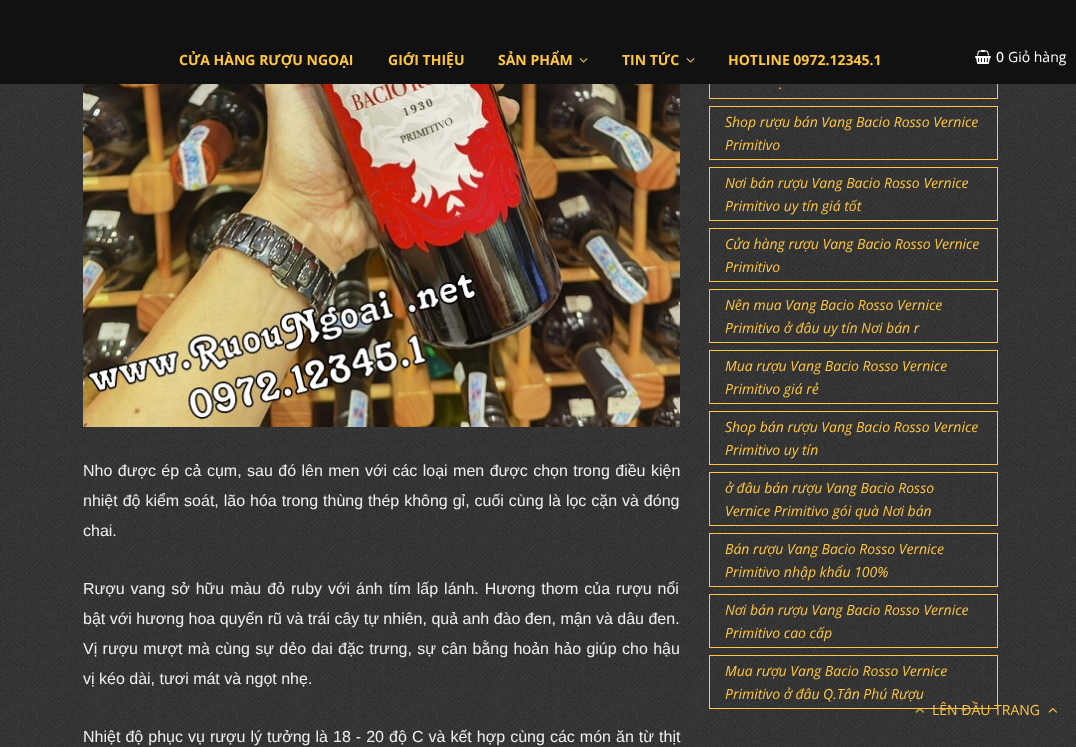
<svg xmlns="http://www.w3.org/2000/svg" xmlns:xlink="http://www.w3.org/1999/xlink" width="1076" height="747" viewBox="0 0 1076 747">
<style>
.cls-1{font:bold 14px Open Sans;fill:#fec63d}
.cls-2{font:500 14px Open Sans;fill:#ffffff}
.cls-3{font:14px Open Sans;fill:#ffffff}
.cls-4{font:16px Liberation Sans;fill:#eeeeee}
.cls-5{font:italic 14px Open Sans;fill:#fec63d}
.cls-6{font:14px Open Sans;fill:#fec63d}
</style>
<rect width="100%" height="100%" fill="#ffffff"/>
<image xlink:href="image0.png" x="0" y="84" width="1076" height="663"/>
<rect fill="none" stroke="#fec63d" x="709.5" y="45.5" width="288" height="53"/>
<rect fill="#111111" x="0" y="0" width="1076" height="84"/>
<image xlink:href="image1.png" x="579" y="58" width="9" height="5"/>
<image xlink:href="image1.png" x="686" y="58" width="9" height="5"/>
<image xlink:href="image2.png" x="975" y="50" width="16" height="14"/>
<image xlink:href="image3.png" x="83" y="84" width="597" height="343"/>
<rect fill="none" stroke="#fec63d" x="709.5" y="106.5" width="288" height="53"/>
<rect fill="none" stroke="#fec63d" x="709.5" y="167.5" width="288" height="53"/>
<rect fill="none" stroke="#fec63d" x="709.5" y="228.5" width="288" height="53"/>
<rect fill="none" stroke="#fec63d" x="709.5" y="289.5" width="288" height="53"/>
<rect fill="none" stroke="#fec63d" x="709.5" y="350.5" width="288" height="53"/>
<rect fill="none" stroke="#fec63d" x="709.5" y="411.5" width="288" height="53"/>
<rect fill="none" stroke="#fec63d" x="709.5" y="472.5" width="288" height="53"/>
<rect fill="none" stroke="#fec63d" x="709.5" y="533.5" width="288" height="53"/>
<rect fill="none" stroke="#fec63d" x="709.5" y="594.5" width="288" height="53"/>
<rect fill="none" stroke="#fec63d" x="709.5" y="655.5" width="288" height="53"/>
<image xlink:href="image4.png" x="915" y="707" width="9" height="6"/>
<image xlink:href="image5.png" x="1048" y="707" width="9" height="6"/>
<text class="cls-1" x="179" y="65">CỬA HÀNG RƯỢU NGOẠI</text>
<text class="cls-1" x="388" y="65">GIỚI THIỆU</text>
<text class="cls-1" x="498" y="65">SẢN PHẨM</text>
<text class="cls-1" x="622" y="65">TIN TỨC</text>
<text class="cls-1" x="728" y="65">HOTLINE 0972.12345.1</text>
<text class="cls-2" x="996" y="62">0</text>
<text class="cls-3" x="1008" y="62">Giỏ hàng</text>
<text class="cls-4"><tspan x="83" y="476" word-spacing="1">Nho được ép cả cụm, sau đó lên men với các loại men được chọn trong điều kiện</tspan><tspan x="83" y="506" word-spacing="0.5">nhiệt độ kiểm soát, lão hóa trong thùng thép không gỉ, cuối cùng là lọc cặn và đóng</tspan><tspan x="83" y="536">chai.</tspan></text>
<text class="cls-4"><tspan x="83" y="594" word-spacing="1.5">Rượu vang sở hữu màu đỏ ruby với ánh tím lấp lánh. Hương thơm của rượu nổi</tspan><tspan x="83" y="624">bật với hương hoa quyến rũ và trái cây tự nhiên, quả anh đào đen, mận và dâu đen.</tspan><tspan x="83" y="654" word-spacing="0.9">Vị rượu mượt mà cùng sự dẻo dai đặc trưng, sự cân bằng hoản hảo giúp cho hậu</tspan><tspan x="83" y="684">vị kéo dài, tươi mát và ngọt nhẹ.</tspan></text>
<text class="cls-4" x="83" y="742" word-spacing="0.6">Nhiệt độ phục vụ rượu lý tưởng là 18 - 20 độ C và kết hợp cùng các món ăn từ thịt</text>
<text class="cls-5" x="779" y="89">.</text>
<text class="cls-5"><tspan x="725" y="127">Shop rượu bán Vang Bacio Rosso Vernice</tspan><tspan x="725" y="150">Primitivo</tspan></text>
<text class="cls-5"><tspan x="725" y="188">Nơi bán rượu Vang Bacio Rosso Vernice</tspan><tspan x="725" y="211">Primitivo uy tín giá tốt</tspan></text>
<text class="cls-5"><tspan x="725" y="249">Cửa hàng rượu Vang Bacio Rosso Vernice</tspan><tspan x="725" y="272">Primitivo</tspan></text>
<text class="cls-5"><tspan x="725" y="310">Nên mua Vang Bacio Rosso Vernice</tspan><tspan x="725" y="333">Primitivo ở đâu uy tín Nơi bán r</tspan></text>
<text class="cls-5"><tspan x="725" y="371">Mua rượu Vang Bacio Rosso Vernice</tspan><tspan x="725" y="394">Primitivo giá rẻ</tspan></text>
<text class="cls-5"><tspan x="725" y="432">Shop bán rượu Vang Bacio Rosso Vernice</tspan><tspan x="725" y="455">Primitivo uy tín</tspan></text>
<text class="cls-5"><tspan x="725" y="493">ở đâu bán rượu Vang Bacio Rosso</tspan><tspan x="725" y="516">Vernice Primitivo gói quà Nơi bán</tspan></text>
<text class="cls-5"><tspan x="725" y="554">Bán rượu Vang Bacio Rosso Vernice</tspan><tspan x="725" y="577">Primitivo nhập khẩu 100%</tspan></text>
<text class="cls-5"><tspan x="725" y="615">Nơi bán rượu Vang Bacio Rosso Vernice</tspan><tspan x="725" y="638">Primitivo cao cấp</tspan></text>
<text class="cls-5"><tspan x="725" y="676">Mua rượu Vang Bacio Rosso Vernice</tspan><tspan x="725" y="699">Primitivo ở đâu Q.Tân Phú Rượu</tspan></text>
<text class="cls-6" x="932" y="715">LÊN ĐẦU TRANG</text>
</svg>
